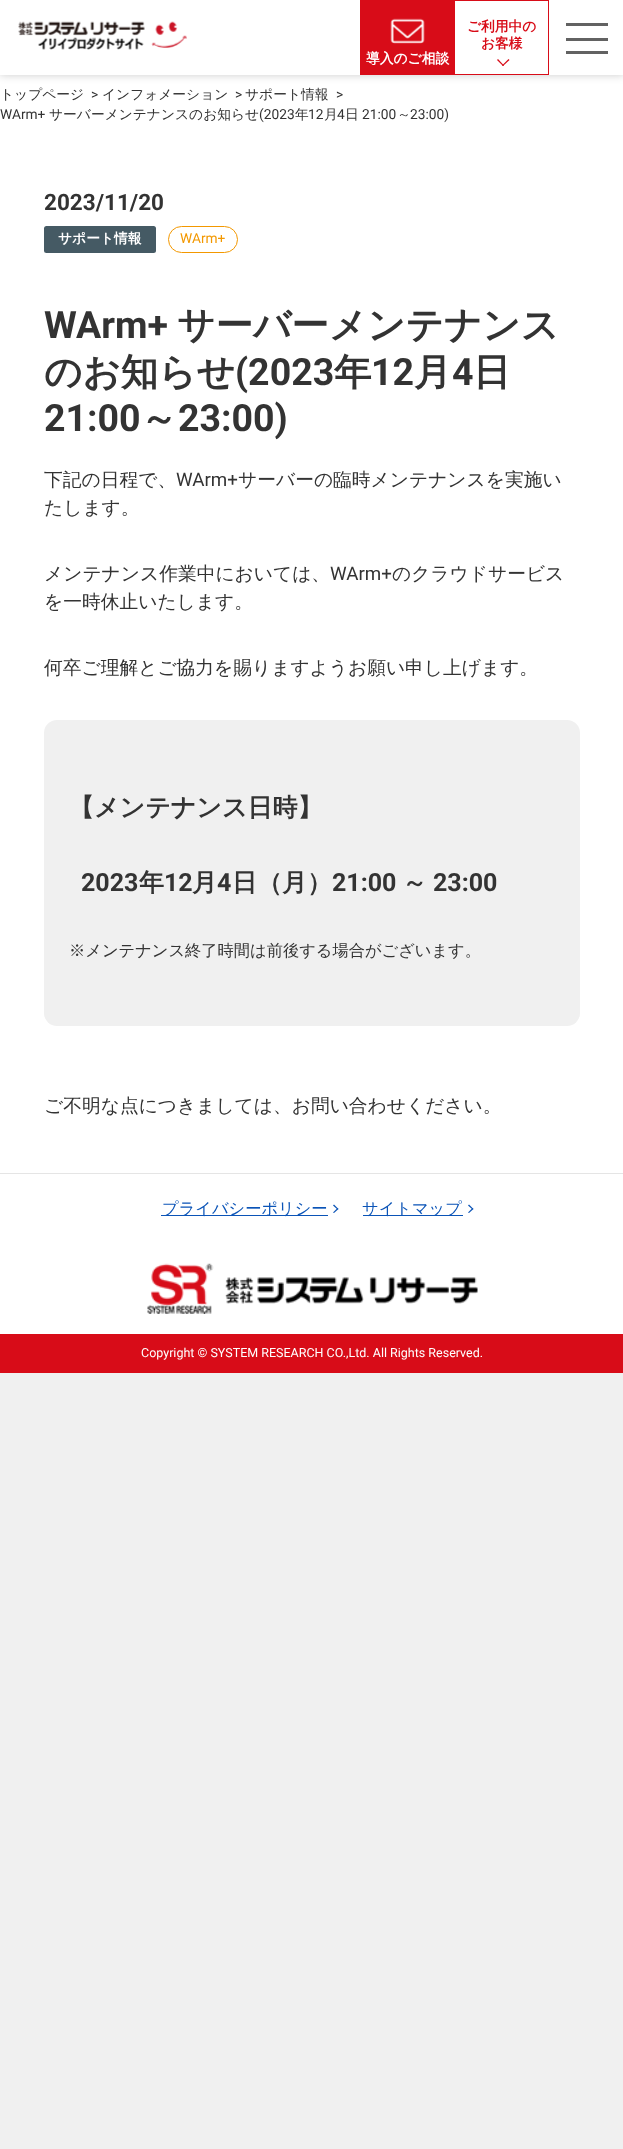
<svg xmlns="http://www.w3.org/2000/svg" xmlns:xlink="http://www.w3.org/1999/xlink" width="623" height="2149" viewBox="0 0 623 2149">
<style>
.cls-1{font:bold 13.75px WenQuanYi Zen Hei;fill:#d80c18}
.cls-2{font:bold 13.75px WenQuanYi Zen Hei;fill:#ffffff}
.cls-3{font:500 13.75px WenQuanYi Zen Hei;fill:#333333}
.cls-4{font:13.75px Roboto;fill:#333333}
.cls-5{font:bold 22.5px Roboto;fill:#333333}
.cls-6{font:13.75px Roboto;fill:#f39800}
.cls-7{font:bold 37.5px Roboto;fill:#333333}
.cls-8{font:bold 37.5px WenQuanYi Zen Hei;fill:#333333}
.cls-9{font:500 18.75px WenQuanYi Zen Hei;fill:#333333}
.cls-10{font:18.75px Roboto;fill:#333333}
.cls-11{font:bold 25px WenQuanYi Zen Hei;fill:#333333}
.cls-12{font:bold 25px Roboto;fill:#333333}
.cls-13{font:500 16.25px WenQuanYi Zen Hei;fill:#333333}
.cls-14{font:500 16.25px WenQuanYi Zen Hei;fill:#0b54b7}
.cls-15{font:12.5px Roboto;fill:#ffffff}
</style>
<rect width="100%" height="100%" fill="#f0f0f0"/>
<rect fill="#ffffff" x="0" y="75" width="623" height="1098"/>
<rect fill="#000000" fill-opacity="0.2" filter="blur(4.5px)" x="0" y="0" width="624" height="75"/>
<rect fill="#ffffff" x="0" y="0" width="623" height="75"/>
<image xlink:href="image0.png" x="18" y="21" width="169" height="29"/>
<rect fill="none" stroke="#d80c18" x="454.5" y="0.5" width="94" height="74"/>
<path fill="#d80c18" d="M502 65.5L508.5 59L509.5 60L503 66Z"/>
<path fill="#d80c18" d="M497 60L498 59L504 65.5L503 66Z"/>
<rect fill="#d80c18" x="360" y="0" width="94" height="75"/>
<image xlink:href="image1.png" x="390" y="18" width="35" height="26"/>
<rect fill="#626262" x="566" y="23" width="42" height="3"/>
<rect fill="#626262" x="566" y="38" width="42" height="3"/>
<rect fill="#626262" x="566" y="51" width="42" height="3"/>
<rect fill="#455a64" x="44" y="226" width="112" height="27" rx="2.5"/>
<rect fill="none" stroke="#f39800" x="168.5" y="226.5" width="69" height="26" rx="13"/>
<rect fill="#f0f0f0" x="44" y="720" width="536" height="306" rx="13"/>
<rect fill="#ffffff" x="0" y="1174" width="623" height="160"/>
<rect fill="#e5e5e5" x="0" y="1173" width="623" height="1"/>
<rect fill="#0b54b7" x="161" y="1215" width="167" height="1"/>
<path fill="#0b54b7" d="M334 1204.5L338.5 1209L337.5 1209.5L333 1205.5Z"/>
<path fill="#0b54b7" d="M337.5 1208L338.5 1209L334 1213L333 1212.5Z"/>
<rect fill="#0b54b7" x="363" y="1215" width="100" height="1"/>
<path fill="#0b54b7" d="M469 1204.5L473.5 1209L472.5 1209.5L468 1205.5Z"/>
<path fill="#0b54b7" d="M472.5 1208L473.5 1209L469 1213L468 1212.5Z"/>
<image xlink:href="image2.png" x="147" y="1263" width="331" height="51"/>
<rect fill="#d80c18" x="0" y="1334" width="623" height="39"/>
<text class="cls-1" x="467" y="31">ご利用中の</text>
<text class="cls-1" x="481" y="48">お客様</text>
<text class="cls-2" x="366" y="63">導入のご相談</text>
<text class="cls-3" x="0" y="99">トップページ</text>
<text class="cls-4" x="91" y="99">&gt;</text>
<text class="cls-3" x="102" y="99">インフォメーション</text>
<text class="cls-4" x="235" y="99">&gt;</text>
<text class="cls-3" x="245" y="99">サポート情報</text>
<text class="cls-4" x="336" y="99">&gt;</text>
<text class="cls-4" x="0" y="119">WArm+</text>
<text class="cls-3" x="49" y="119">サーバーメンテナンスのお知らせ</text>
<text class="cls-4" x="259" y="119">(2023</text>
<text class="cls-3" x="295" y="119">年</text>
<text class="cls-4" x="308" y="119">12</text>
<text class="cls-3" x="324" y="119">月</text>
<text class="cls-4" x="337" y="119">4</text>
<text class="cls-3" x="345" y="119">日</text>
<text class="cls-4" x="362" y="119">21:00</text>
<text class="cls-3" x="397" y="119">～</text>
<text class="cls-4" x="410" y="119">23:00)</text>
<text class="cls-5" x="44" y="210">2023/11/20</text>
<text class="cls-2" x="58" y="243">サポート情報</text>
<text class="cls-6" x="180" y="243">WArm+</text>
<text class="cls-7" x="44" y="338">WArm+</text>
<text class="cls-8" x="177" y="338">サーバーメンテナンス</text>
<text class="cls-8" x="44" y="385">のお知らせ</text>
<text class="cls-7" x="235" y="385">(2023</text>
<text class="cls-8" x="334" y="385">年</text>
<text class="cls-7" x="371" y="385">12</text>
<text class="cls-8" x="414" y="385">月</text>
<text class="cls-7" x="452" y="385">4</text>
<text class="cls-8" x="473" y="385">日</text>
<text class="cls-7" x="44" y="431">21:00</text>
<text class="cls-8" x="140" y="431">～</text>
<text class="cls-7" x="178" y="431">23:00)</text>
<text class="cls-9" x="44" y="486">下記の日程で、</text>
<text class="cls-10" x="176" y="486">WArm+</text>
<text class="cls-9" x="238" y="486">サーバーの臨時メンテナンスを実施い</text>
<text class="cls-9" x="44" y="514">たします。</text>
<text class="cls-9" x="44" y="580">メンテナンス作業中においては、</text>
<text class="cls-10" x="330" y="580">WArm+</text>
<text class="cls-9" x="392" y="580">のクラウドサービス</text>
<text class="cls-9" x="44" y="608">を一時休止いたします。</text>
<text class="cls-9" x="44" y="674">何卒ご理解とご協力を賜りますようお願い申し上げます。</text>
<text class="cls-11" x="69" y="816">【メンテナンス日時】</text>
<text class="cls-12" x="81" y="891">2023</text>
<text class="cls-11" x="139" y="891">年</text>
<text class="cls-12" x="164" y="891">12</text>
<text class="cls-11" x="192" y="891">月</text>
<text class="cls-12" x="217" y="891">4</text>
<text class="cls-11" x="232" y="891">日（月）</text>
<text class="cls-12" x="332" y="891">21:00</text>
<text class="cls-11" x="402" y="891">～</text>
<text class="cls-12" x="433" y="891">23:00</text>
<text class="cls-13" x="69" y="956">※メンテナンス終了時間は前後する場合がございます。</text>
<text class="cls-9" x="44" y="1112">ご不明な点につきましては、お問い合わせください。</text>
<text class="cls-14" x="162" y="1214">プライバシーポリシー</text>
<text class="cls-14" x="362" y="1214">サイトマップ</text>
<text class="cls-15" x="141" y="1357">Copyright © SYSTEM RESEARCH CO.,Ltd. All Rights Reserved.</text>
</svg>
